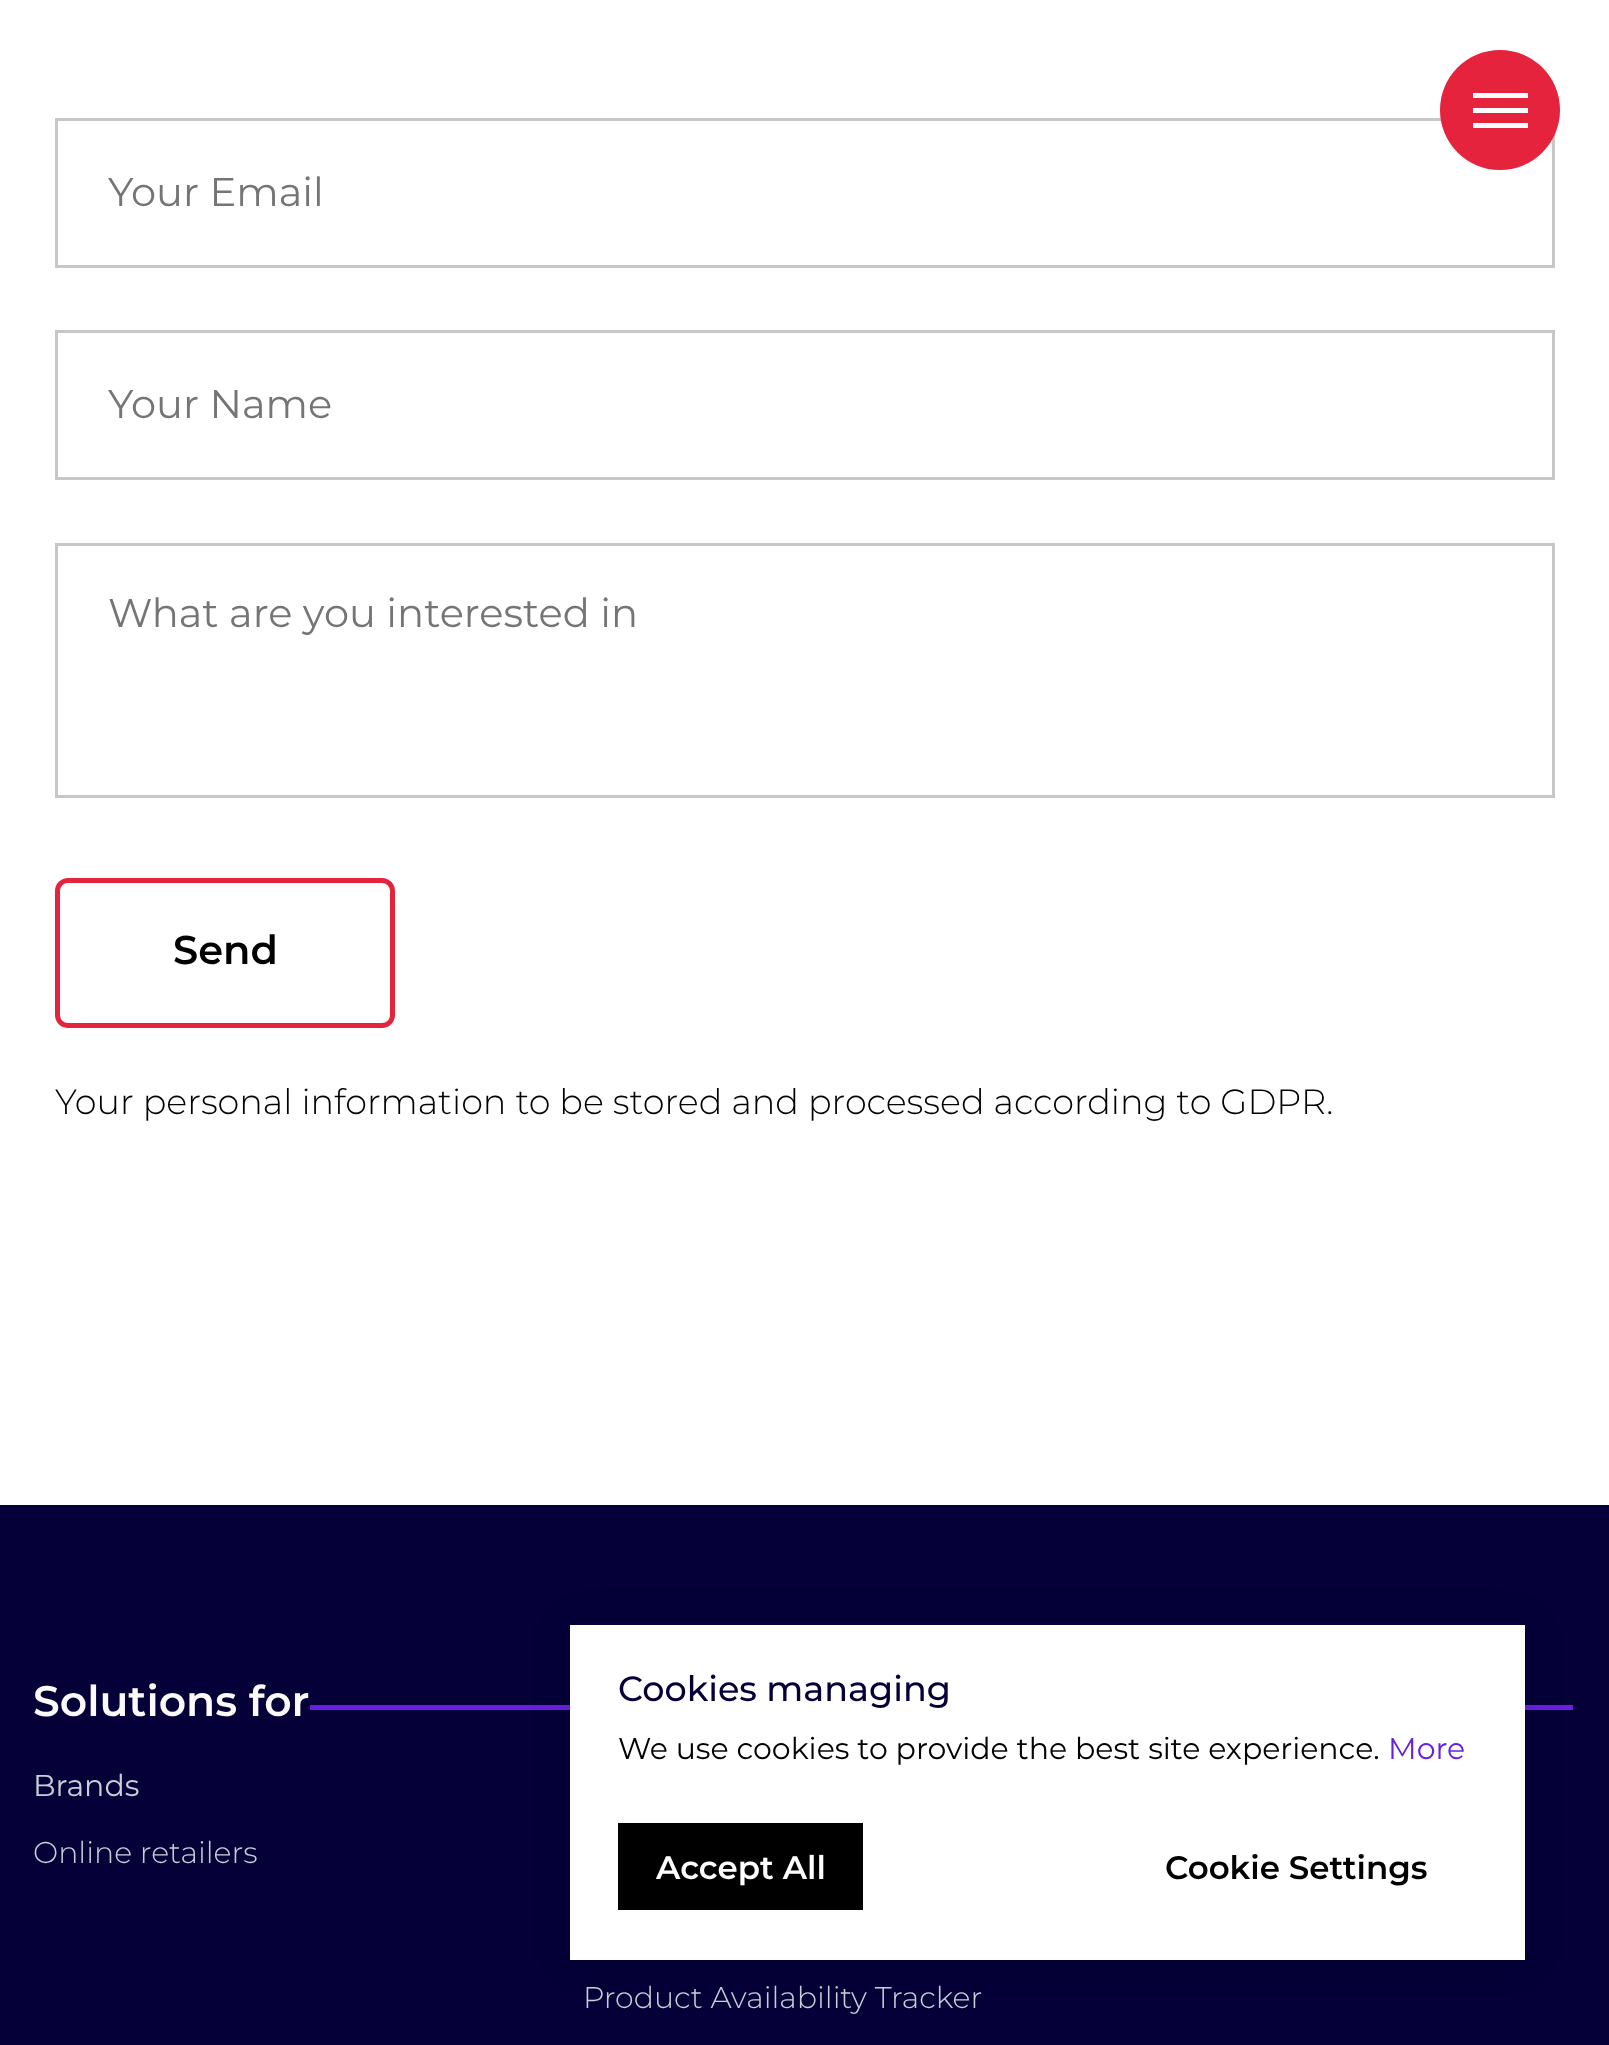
<svg xmlns="http://www.w3.org/2000/svg" xmlns:xlink="http://www.w3.org/1999/xlink" width="1609" height="2045" viewBox="0 0 1609 2045">
<style>
.cls-1{font:40px Montserrat;fill:#757575}
.cls-2{font:600 40px Montserrat;fill:#000000}
.cls-3{font:300 35px Montserrat;fill:#000000}
.cls-4{font:600 42.5px Montserrat;fill:#fcf9f9}
.cls-5{font:30px Montserrat;fill:#cdccd7}
.cls-6{font:300 30px Montserrat;fill:#cdccd7}
.cls-7{font:500 35px Montserrat;fill:#050038}
.cls-8{font:30px Montserrat;fill:#000000}
.cls-9{font:30px Montserrat;fill:#671fe2}
.cls-10{font:600 32.5px Montserrat;fill:#ffffff}
.cls-11{font:600 32.5px Montserrat;fill:#000000}
</style>
<rect width="100%" height="100%" fill="#ffffff"/>
<rect fill="none" stroke="#c7c7c7" stroke-width="3" x="56.5" y="119.5" width="1497" height="147"/>
<circle fill="#e5233d" cx="1500" cy="110" r="60"/>
<rect fill="#ffffff" x="1473" y="93" width="55" height="5"/>
<rect fill="#ffffff" x="1473" y="108" width="55" height="5"/>
<rect fill="#ffffff" x="1473" y="123" width="55" height="5"/>
<rect fill="none" stroke="#c7c7c7" stroke-width="3" x="56.5" y="331.5" width="1497" height="147"/>
<rect fill="none" stroke="#c7c7c7" stroke-width="3" x="56.5" y="544.5" width="1497" height="252"/>
<rect fill="none" stroke="#e4233d" stroke-width="5" x="57.5" y="880.5" width="335" height="145" rx="10.5"/>
<rect fill="#050038" x="0" y="1505" width="1609" height="540"/>
<rect fill="#691fe2" x="310" y="1705" width="1263" height="5"/>
<rect fill="#000000" fill-opacity="0.1" filter="blur(19px)" x="570" y="1625" width="955" height="335"/>
<rect fill="#ffffff" x="570" y="1625" width="955" height="335"/>
<rect fill="#000000" x="618" y="1823" width="245" height="87"/>
<text class="cls-1" x="108" y="206">Your Email</text>
<text class="cls-1" x="108" y="418">Your Name</text>
<text class="cls-1" x="108" y="627">What are you interested in</text>
<text class="cls-2" x="173" y="964">Send</text>
<text class="cls-3" x="55" y="1114">Your personal information to be stored and processed according to GDPR.</text>
<text class="cls-4" x="33" y="1716">Solutions for</text>
<text class="cls-5" x="33" y="1796">Brands</text>
<text class="cls-6" x="33" y="1863">Online retailers</text>
<text class="cls-6" x="583" y="2008">Product Availability Tracker</text>
<text class="cls-7" x="618" y="1701">Cookies managing</text>
<text class="cls-8" x="618" y="1759">We use cookies to provide the best site experience.</text>
<text class="cls-9" x="1388" y="1759">More</text>
<text class="cls-10" x="656" y="1879">Accept All</text>
<text class="cls-11" x="1165" y="1879">Cookie Settings</text>
</svg>
